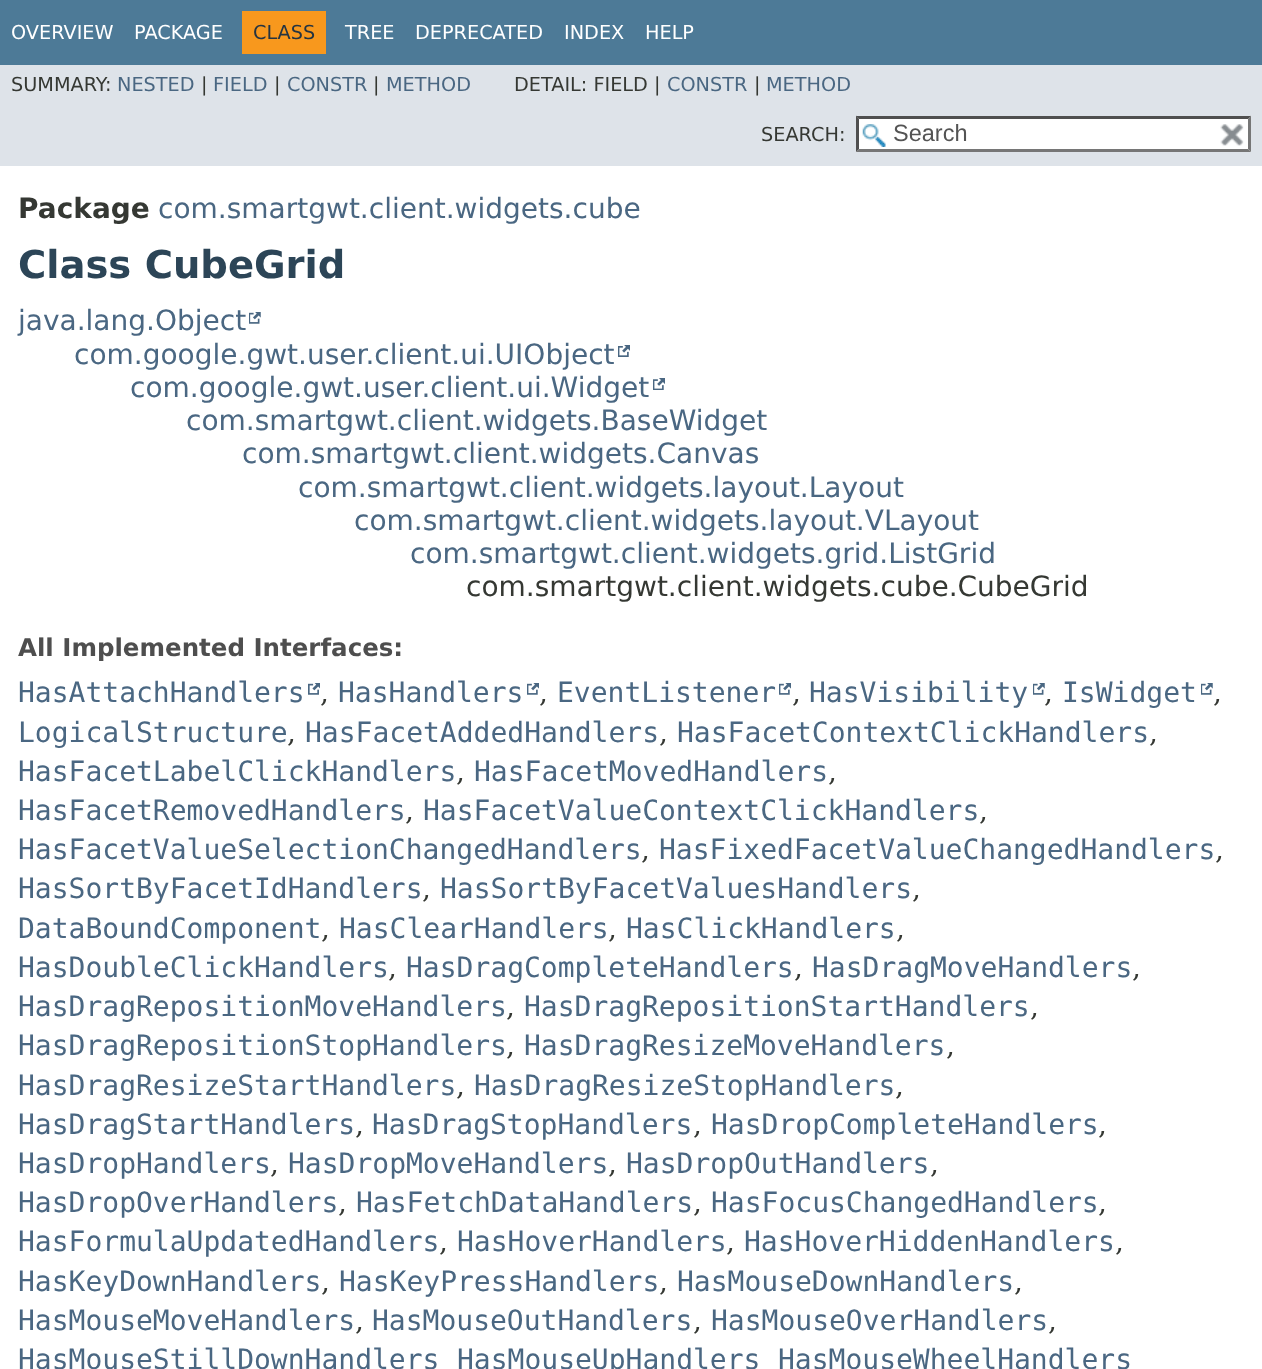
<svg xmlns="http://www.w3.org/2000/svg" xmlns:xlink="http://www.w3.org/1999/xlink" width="1262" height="1369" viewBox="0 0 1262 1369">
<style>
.cls-1{font:19.25px DejaVu Sans;fill:#ffffff}
.cls-2{font:19.25px DejaVu Sans;fill:#253441}
.cls-3{font:19.25px DejaVu Sans;fill:#353833}
.cls-4{font:19.25px DejaVu Sans;fill:#4a6782}
.cls-5{font:23.5px Liberation Sans;fill:#545454}
.cls-6{font:bold 28px DejaVu Sans;fill:#353833}
.cls-7{font:28px DejaVu Sans;fill:#4a6782}
.cls-8{font:bold 38.5px DejaVu Sans;fill:#2c4557}
.cls-9{font:28px DejaVu Sans;fill:#353833}
.cls-10{font:bold 24.5px DejaVu Sans;fill:#4e4e4e}
.cls-11{font:28px DejaVu Sans Mono;fill:#4a6782}
.cls-12{font:28px DejaVu Serif;fill:#353833}
</style>
<rect width="100%" height="100%" fill="#ffffff"/>
<rect fill="#4d7a97" x="0" y="0" width="1262" height="65"/>
<rect fill="#f8981d" x="242" y="11" width="84" height="43"/>
<rect fill="#dee3e9" x="0" y="65" width="1262" height="101"/>
<rect fill="#ffffff" x="856" y="116" width="395" height="36"/>
<image xlink:href="image0.png" x="862" y="124" width="24" height="23"/>
<path fill="#4f4f4f" d="M856 116H1251L1248 119H859Z"/>
<path fill="#767676" d="M1251 115.5V152L1248 149V119Z"/>
<path fill="#767676" d="M1251 152H856L859 149H1248Z"/>
<path fill="#4f4f4f" d="M856 152V115.5L859 119V149Z"/>
<image xlink:href="image1.png" x="1220" y="124" width="24" height="22"/>
<image xlink:href="image2.png" x="249" y="312" width="12" height="12"/>
<image xlink:href="image3.png" x="618" y="345" width="12" height="12"/>
<image xlink:href="image4.png" x="653" y="378" width="12" height="12"/>
<image xlink:href="image5.png" x="308" y="683" width="12" height="12"/>
<image xlink:href="image6.png" x="527" y="683" width="12" height="12"/>
<image xlink:href="image6.png" x="779" y="683" width="12" height="12"/>
<image xlink:href="image2.png" x="1033" y="683" width="12" height="12"/>
<image xlink:href="image2.png" x="1201" y="683" width="12" height="12"/>
<text class="cls-1" x="11" y="39">OVERVIEW</text>
<text class="cls-1" x="134" y="39">PACKAGE</text>
<text class="cls-2" x="253" y="39">CLASS</text>
<text class="cls-1" x="345" y="39">TREE</text>
<text class="cls-1" x="415" y="39">DEPRECATED</text>
<text class="cls-1" x="564" y="39">INDEX</text>
<text class="cls-1" x="645" y="39">HELP</text>
<text class="cls-3" x="11" y="91">SUMMARY:</text>
<text class="cls-4" x="117" y="91">NESTED</text>
<text class="cls-3" x="201" y="91">|</text>
<text class="cls-4" x="213" y="91">FIELD</text>
<text class="cls-3" x="274" y="91">|</text>
<text class="cls-4" x="287" y="91">CONSTR</text>
<text class="cls-3" x="373" y="91">|</text>
<text class="cls-4" x="386" y="91">METHOD</text>
<text class="cls-3" x="514" y="91">DETAIL: FIELD |</text>
<text class="cls-4" x="667" y="91">CONSTR</text>
<text class="cls-3" x="754" y="91">|</text>
<text class="cls-4" x="766" y="91">METHOD</text>
<text class="cls-3" x="761" y="141">SEARCH:</text>
<text class="cls-5" x="893" y="141">Search</text>
<text class="cls-6" x="18" y="218">Package</text>
<text class="cls-7" x="158" y="218">com.smartgwt.client.widgets.cube</text>
<text class="cls-8" x="18" y="278">Class CubeGrid</text>
<text class="cls-7" x="18" y="330">java.lang.Object</text>
<text class="cls-7" x="74" y="364">com.google.gwt.user.client.ui.UIObject</text>
<text class="cls-7" x="130" y="397">com.google.gwt.user.client.ui.Widget</text>
<text class="cls-7" x="186" y="430">com.smartgwt.client.widgets.BaseWidget</text>
<text class="cls-7" x="242" y="463">com.smartgwt.client.widgets.Canvas</text>
<text class="cls-7" x="298" y="497">com.smartgwt.client.widgets.layout.Layout</text>
<text class="cls-7" x="354" y="530">com.smartgwt.client.widgets.layout.VLayout</text>
<text class="cls-7" x="410" y="563">com.smartgwt.client.widgets.grid.ListGrid</text>
<text class="cls-9" x="466" y="596">com.smartgwt.client.widgets.cube.CubeGrid</text>
<text class="cls-10" x="18" y="656">All Implemented Interfaces:</text>
<text class="cls-11" x="18" y="702">HasAttachHandlers</text>
<text class="cls-12" x="320" y="702">,</text>
<text class="cls-11" x="338" y="702">HasHandlers</text>
<text class="cls-12" x="539" y="702">,</text>
<text class="cls-11" x="557" y="702">EventListener</text>
<text class="cls-12" x="792" y="702">,</text>
<text class="cls-11" x="809" y="702">HasVisibility</text>
<text class="cls-12" x="1044" y="702">,</text>
<text class="cls-11" x="1062" y="702">IsWidget</text>
<text class="cls-12" x="1213" y="702">,</text>
<text class="cls-11" x="18" y="742">LogicalStructure</text>
<text class="cls-12" x="287" y="742">,</text>
<text class="cls-11" x="305" y="742">HasFacetAddedHandlers</text>
<text class="cls-12" x="659" y="742">,</text>
<text class="cls-11" x="677" y="742">HasFacetContextClickHandlers</text>
<text class="cls-12" x="1149" y="742">,</text>
<text class="cls-11" x="18" y="781">HasFacetLabelClickHandlers</text>
<text class="cls-12" x="456" y="781">,</text>
<text class="cls-11" x="474" y="781">HasFacetMovedHandlers</text>
<text class="cls-12" x="828" y="781">,</text>
<text class="cls-11" x="18" y="820">HasFacetRemovedHandlers</text>
<text class="cls-12" x="405" y="820">,</text>
<text class="cls-11" x="423" y="820">HasFacetValueContextClickHandlers</text>
<text class="cls-12" x="979" y="820">,</text>
<text class="cls-11" x="18" y="859">HasFacetValueSelectionChangedHandlers</text>
<text class="cls-12" x="641" y="859">,</text>
<text class="cls-11" x="659" y="859">HasFixedFacetValueChangedHandlers</text>
<text class="cls-12" x="1215" y="859">,</text>
<text class="cls-11" x="18" y="898">HasSortByFacetIdHandlers</text>
<text class="cls-12" x="422" y="898">,</text>
<text class="cls-11" x="440" y="898">HasSortByFacetValuesHandlers</text>
<text class="cls-12" x="912" y="898">,</text>
<text class="cls-11" x="18" y="938">DataBoundComponent</text>
<text class="cls-12" x="321" y="938">,</text>
<text class="cls-11" x="339" y="938">HasClearHandlers</text>
<text class="cls-12" x="608" y="938">,</text>
<text class="cls-11" x="626" y="938">HasClickHandlers</text>
<text class="cls-12" x="896" y="938">,</text>
<text class="cls-11" x="18" y="977">HasDoubleClickHandlers</text>
<text class="cls-12" x="388" y="977">,</text>
<text class="cls-11" x="406" y="977">HasDragCompleteHandlers</text>
<text class="cls-12" x="794" y="977">,</text>
<text class="cls-11" x="812" y="977">HasDragMoveHandlers</text>
<text class="cls-12" x="1132" y="977">,</text>
<text class="cls-11" x="18" y="1016">HasDragRepositionMoveHandlers</text>
<text class="cls-12" x="506" y="1016">,</text>
<text class="cls-11" x="524" y="1016">HasDragRepositionStartHandlers</text>
<text class="cls-12" x="1030" y="1016">,</text>
<text class="cls-11" x="18" y="1055">HasDragRepositionStopHandlers</text>
<text class="cls-12" x="506" y="1055">,</text>
<text class="cls-11" x="524" y="1055">HasDragResizeMoveHandlers</text>
<text class="cls-12" x="946" y="1055">,</text>
<text class="cls-11" x="18" y="1095">HasDragResizeStartHandlers</text>
<text class="cls-12" x="456" y="1095">,</text>
<text class="cls-11" x="474" y="1095">HasDragResizeStopHandlers</text>
<text class="cls-12" x="895" y="1095">,</text>
<text class="cls-11" x="18" y="1134">HasDragStartHandlers</text>
<text class="cls-12" x="355" y="1134">,</text>
<text class="cls-11" x="372" y="1134">HasDragStopHandlers</text>
<text class="cls-12" x="693" y="1134">,</text>
<text class="cls-11" x="711" y="1134">HasDropCompleteHandlers</text>
<text class="cls-12" x="1098" y="1134">,</text>
<text class="cls-11" x="18" y="1173">HasDropHandlers</text>
<text class="cls-12" x="270" y="1173">,</text>
<text class="cls-11" x="288" y="1173">HasDropMoveHandlers</text>
<text class="cls-12" x="608" y="1173">,</text>
<text class="cls-11" x="626" y="1173">HasDropOutHandlers</text>
<text class="cls-12" x="930" y="1173">,</text>
<text class="cls-11" x="18" y="1212">HasDropOverHandlers</text>
<text class="cls-12" x="338" y="1212">,</text>
<text class="cls-11" x="356" y="1212">HasFetchDataHandlers</text>
<text class="cls-12" x="693" y="1212">,</text>
<text class="cls-11" x="711" y="1212">HasFocusChangedHandlers</text>
<text class="cls-12" x="1098" y="1212">,</text>
<text class="cls-11" x="18" y="1251">HasFormulaUpdatedHandlers</text>
<text class="cls-12" x="439" y="1251">,</text>
<text class="cls-11" x="457" y="1251">HasHoverHandlers</text>
<text class="cls-12" x="726" y="1251">,</text>
<text class="cls-11" x="744" y="1251">HasHoverHiddenHandlers</text>
<text class="cls-12" x="1115" y="1251">,</text>
<text class="cls-11" x="18" y="1291">HasKeyDownHandlers</text>
<text class="cls-12" x="321" y="1291">,</text>
<text class="cls-11" x="339" y="1291">HasKeyPressHandlers</text>
<text class="cls-12" x="659" y="1291">,</text>
<text class="cls-11" x="677" y="1291">HasMouseDownHandlers</text>
<text class="cls-12" x="1014" y="1291">,</text>
<text class="cls-11" x="18" y="1330">HasMouseMoveHandlers</text>
<text class="cls-12" x="355" y="1330">,</text>
<text class="cls-11" x="372" y="1330">HasMouseOutHandlers</text>
<text class="cls-12" x="693" y="1330">,</text>
<text class="cls-11" x="711" y="1330">HasMouseOverHandlers</text>
<text class="cls-12" x="1048" y="1330">,</text>
<text class="cls-11" x="18" y="1369">HasMouseStillDownHandlers</text>
<text class="cls-11" x="457" y="1369">HasMouseUpHandlers</text>
<text class="cls-11" x="778" y="1369">HasMouseWheelHandlers</text>
</svg>
